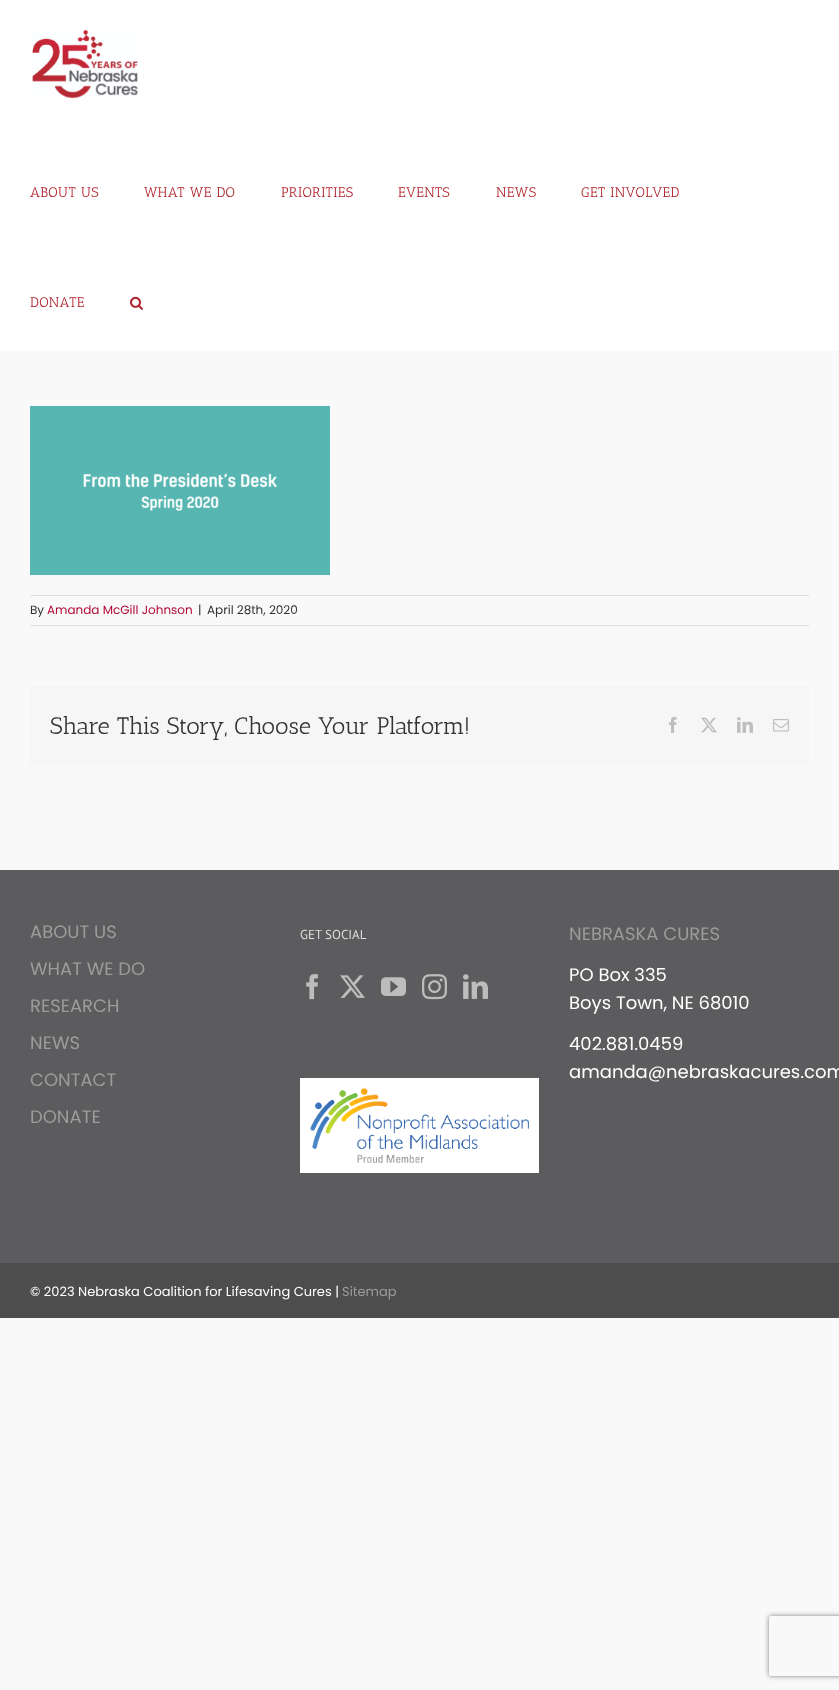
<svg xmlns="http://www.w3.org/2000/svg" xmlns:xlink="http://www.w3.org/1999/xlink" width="839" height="1690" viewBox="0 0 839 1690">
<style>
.cls-1{font:14px Antic Slab;letter-spacing:0.5px;fill:#b22029}
.cls-2{font:12px Poppins;fill:#333333}
.cls-3{font:12px Poppins;fill:#b30838}
.cls-4{font:24px Antic Slab;fill:#333333}
.cls-5{font:18px Poppins;fill:#9c9c9c}
.cls-6{font:13px PT Sans;fill:#dddddd}
.cls-7{font:18px Poppins;fill:#ffffff}
.cls-8{font:13px Poppins;fill:#ffffff}
.cls-9{font:13px Poppins;fill:#9c9c9c}
</style>
<defs>
<clipPath id="clip1"><path d="M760 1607H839V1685H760ZM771 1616H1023C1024 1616 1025 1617 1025 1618V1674C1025 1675 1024 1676 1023 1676H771C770 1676 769 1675 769 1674V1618C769 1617 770 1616 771 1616Z" clip-rule="evenodd"/></clipPath>
</defs>
<rect width="100%" height="100%" fill="#f8f9f8"/>
<rect fill="#ffffff" x="0" y="0" width="839" height="351"/>
<image xlink:href="image0.png" x="32" y="30" width="107" height="69"/>
<image xlink:href="image1.png" x="130" y="296" width="13" height="14"/>
<image xlink:href="image2.png" x="30" y="406" width="300" height="169"/>
<rect fill="#e0dede" x="30" y="595" width="779" height="1"/>
<rect fill="#e0dede" x="30" y="625" width="779" height="1"/>
<rect fill="#f6f6f6" x="30" y="686" width="779" height="79"/>
<image xlink:href="image3.png" x="669" y="717" width="8" height="16"/>
<image xlink:href="image4.png" x="701" y="717" width="16" height="16"/>
<image xlink:href="image5.png" x="737" y="717" width="16" height="16"/>
<image xlink:href="image6.png" x="773" y="719" width="16" height="13"/>
<rect fill="#5c5c5e" x="0" y="870" width="839" height="393"/>
<image xlink:href="image7.png" x="306" y="974" width="12" height="26"/>
<image xlink:href="image8.png" x="340" y="975" width="25" height="23"/>
<image xlink:href="image9.png" x="381" y="977" width="25" height="19"/>
<image xlink:href="image10.png" x="422" y="974" width="25" height="26"/>
<image xlink:href="image11.png" x="463" y="974" width="25" height="25"/>
<rect fill="#ffffff" x="300" y="1078" width="239" height="95"/>
<image xlink:href="image12.png" x="310" y="1087" width="219" height="76"/>
<rect fill="#4d4d4d" x="0" y="1264" width="839" height="54"/>
<rect fill="#4b4c4d" x="0" y="1263" width="839" height="1"/>
<g clip-path="url(#clip1)">
<rect fill="#808080" filter="blur(2.5px)" x="769" y="1616" width="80" height="60" rx="2"/>
</g>
<text class="cls-1" x="30" y="197">ABOUT US</text>
<text class="cls-1" x="144" y="197">WHAT WE DO</text>
<text class="cls-1" x="281" y="197">PRIORITIES</text>
<text class="cls-1" x="398" y="197">EVENTS</text>
<text class="cls-1" x="496" y="197">NEWS</text>
<text class="cls-1" x="581" y="197">GET INVOLVED</text>
<text class="cls-1" x="30" y="307">DONATE</text>
<text class="cls-2" x="30" y="614">By</text>
<text class="cls-3" x="47" y="614">Amanda McGill Johnson</text>
<text class="cls-2" x="198" y="614">|</text>
<text class="cls-2" x="207" y="614">April 28th, 2020</text>
<text class="cls-4" x="50" y="734">Share This Story, Choose Your Platform!</text>
<text class="cls-5" x="30" y="938">ABOUT US</text>
<text class="cls-5" x="30" y="975">WHAT WE DO</text>
<text class="cls-5" x="30" y="1012">RESEARCH</text>
<text class="cls-5" x="30" y="1049">NEWS</text>
<text class="cls-5" x="30" y="1086">CONTACT</text>
<text class="cls-5" x="30" y="1123">DONATE</text>
<text class="cls-6" x="300" y="939">GET SOCIAL</text>
<text class="cls-5" x="569" y="940">NEBRASKA CURES</text>
<text class="cls-7"><tspan x="569" y="981">PO Box 335</tspan><tspan x="569" y="1009">Boys Town, NE 68010</tspan></text>
<text class="cls-7"><tspan x="569" y="1050">402.881.0459</tspan><tspan x="569" y="1078">amanda@nebraskacures.com</tspan></text>
<text class="cls-8" x="30" y="1296">© 2023 Nebraska Coalition for Lifesaving Cures |</text>
<text class="cls-9" x="342" y="1296">Sitemap</text>
</svg>
